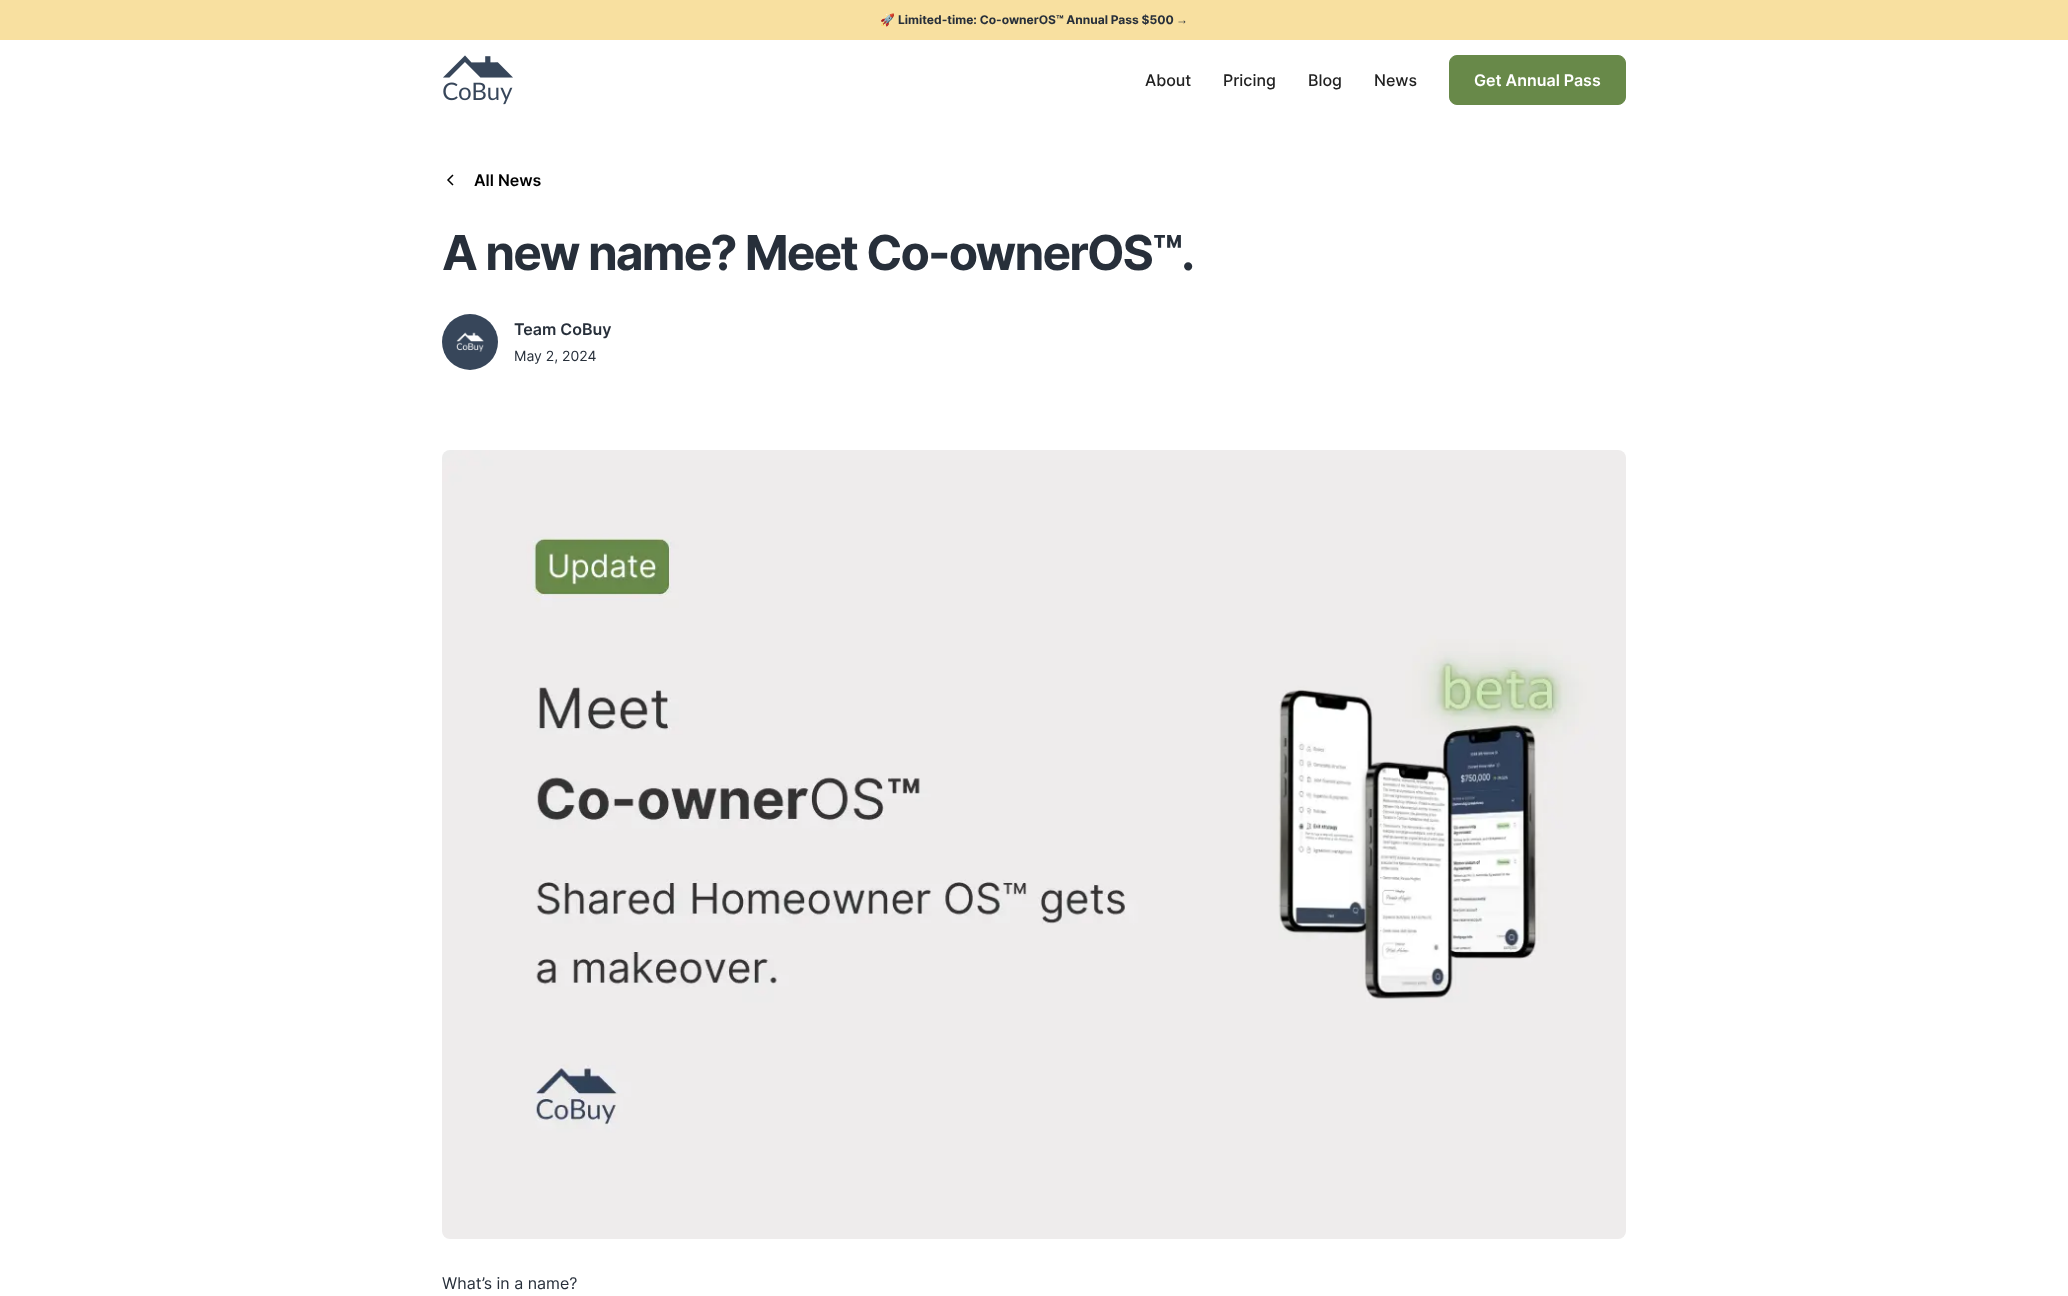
<svg xmlns="http://www.w3.org/2000/svg" xmlns:xlink="http://www.w3.org/1999/xlink" width="2068" height="1296" viewBox="0 0 2068 1296">
<style>
.cls-1{font:12px Noto Color Emoji;fill:#272f3a}
.cls-2{font:bold 12px Inter;fill:#272f3a}
.cls-3{font:12px Liberation Sans;fill:#272f3a}
.cls-4{font:500 16px Inter;fill:#222222}
.cls-5{font:600 16px Inter;fill:#ffffff}
.cls-6{font:600 16px Inter;fill:#000000}
.cls-7{font:bold 48px Inter;letter-spacing:-1.9px;fill:#272f3a}
.cls-8{font:600 16px Inter;fill:#272f3a}
.cls-9{font:14px Inter;fill:#272f3a}
.cls-10{font:16px Inter;fill:#272f3a}
</style>
<rect width="100%" height="100%" fill="#ffffff"/>
<rect fill="#f8e0a0" x="0" y="0" width="2068" height="40"/>
<image xlink:href="image0.png" x="443" y="55" width="70" height="50"/>
<rect fill="#688949" stroke="#688949" x="1449.5" y="55.5" width="176" height="49" rx="7.5"/>
<path fill="none" stroke="#000000" stroke-width="1.5" d="M453 185L448 180L453 175"/>
<image xlink:href="image1.png" x="442" y="314" width="56" height="56"/>
<image xlink:href="image2.png" x="442" y="450" width="1184" height="789"/>
<text class="cls-1" x="880" y="24">🚀</text>
<text class="cls-2" x="898" y="24">Limited-time: Co-ownerOS™ Annual Pass $500</text>
<text class="cls-3" x="1176" y="24">→</text>
<text class="cls-4" x="1145" y="86">About</text>
<text class="cls-4" x="1223" y="86">Pricing</text>
<text class="cls-4" x="1308" y="86">Blog</text>
<text class="cls-4" x="1374" y="86">News</text>
<text class="cls-5" x="1474" y="86">Get Annual Pass</text>
<text class="cls-6" x="474" y="186">All News</text>
<text class="cls-7" x="442" y="270">A new name? Meet Co-ownerOS™.</text>
<text class="cls-8" x="514" y="335">Team CoBuy</text>
<text class="cls-9" x="514" y="361">May 2, 2024</text>
<text class="cls-10" x="442" y="1289">What’s in a name?</text>
</svg>
